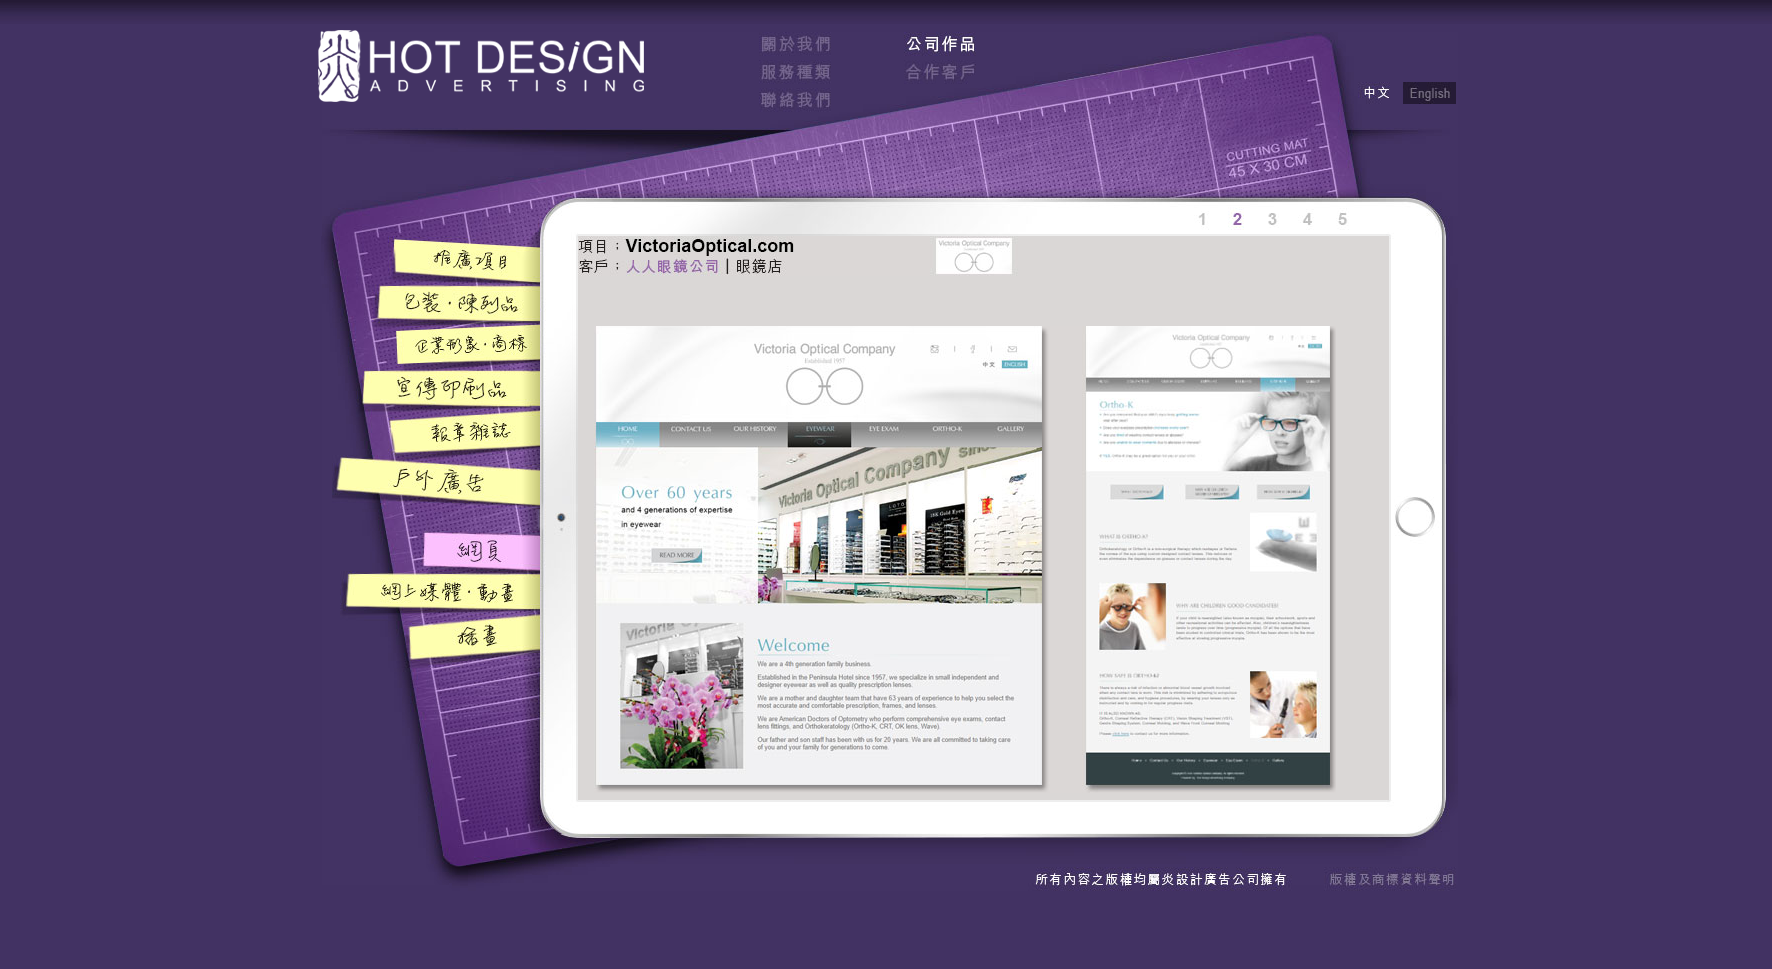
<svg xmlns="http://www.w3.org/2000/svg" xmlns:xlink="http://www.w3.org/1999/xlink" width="1772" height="969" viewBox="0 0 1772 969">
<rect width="100%" height="100%" fill="#423263"/>
<image xlink:href="image0.png" x="0" y="0" width="1772" height="24"/>
<image xlink:href="image1.png" x="322" y="32" width="1136" height="853"/>
<image xlink:href="image2.png" x="318" y="30" width="326" height="72"/>
<image xlink:href="image3.png" x="759" y="32" width="72" height="24"/>
<image xlink:href="image4.png" x="759" y="60" width="72" height="24"/>
<image xlink:href="image5.png" x="759" y="88" width="129" height="28"/>
<image xlink:href="image6.png" x="904" y="32" width="72" height="24"/>
<image xlink:href="image7.png" x="904" y="60" width="129" height="28"/>
<image xlink:href="image8.png" x="1358" y="82" width="32" height="22"/>
<image xlink:href="image9.png" x="1403" y="82" width="53" height="22"/>
<image xlink:href="image10.png" x="1194" y="211" width="15" height="19"/>
<image xlink:href="image11.png" x="1228" y="207" width="16" height="23"/>
<image xlink:href="image12.png" x="1268" y="213" width="11" height="15"/>
<image xlink:href="image13.png" x="1298" y="209" width="16" height="21"/>
<image xlink:href="image14.png" x="1336" y="208" width="13" height="22"/>
<image xlink:href="image15.png" x="321" y="236" width="219" height="48"/>
<image xlink:href="image16.png" x="329" y="284" width="211" height="39"/>
<image xlink:href="image17.png" x="337" y="323" width="203" height="44"/>
<image xlink:href="image18.png" x="345" y="367" width="195" height="42"/>
<image xlink:href="image19.png" x="353" y="409" width="187" height="46"/>
<image xlink:href="image20.png" x="332" y="455" width="208" height="54"/>
<image xlink:href="image21.png" x="372" y="531" width="168" height="40"/>
<image xlink:href="image22.png" x="340" y="571" width="200" height="42"/>
<image xlink:href="image23.png" x="340" y="613" width="200" height="55"/>
<rect fill="#dad7d6" x="578" y="236" width="811" height="564"/>
<image xlink:href="image24.png" x="578" y="236" width="440" height="40"/>
<image xlink:href="image25.png" x="594" y="326" width="742" height="467"/>
<image xlink:href="image26.png" x="449" y="867" width="843" height="24"/>
<image xlink:href="image27.png" x="1324" y="867" width="132" height="24"/>
</svg>
